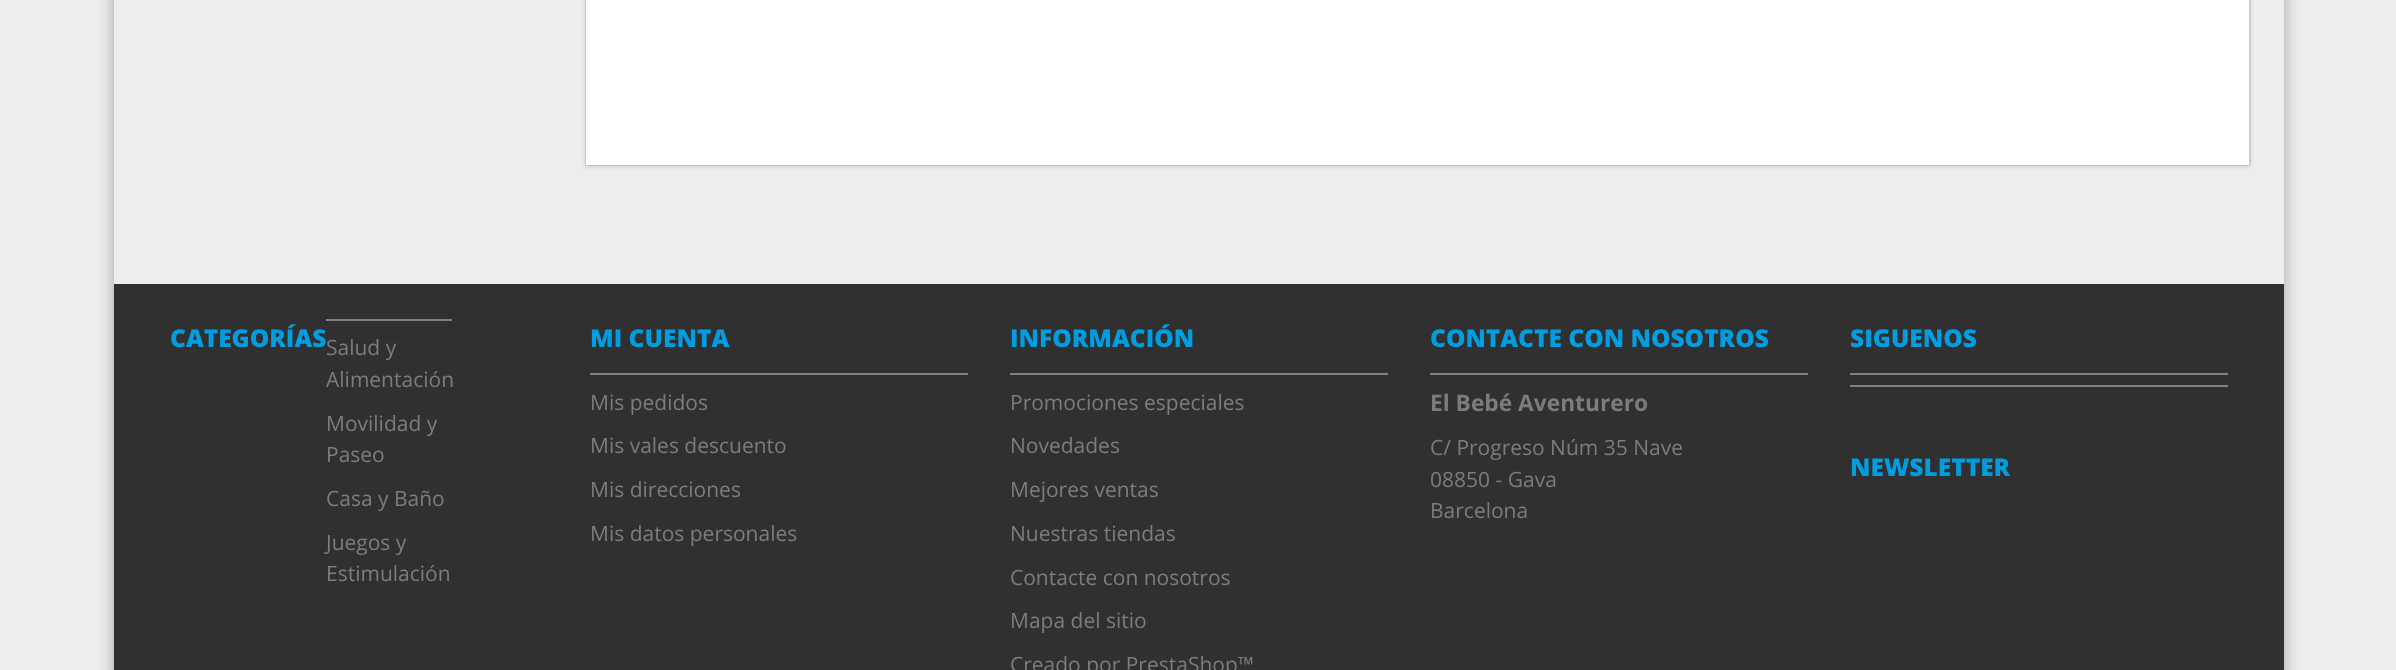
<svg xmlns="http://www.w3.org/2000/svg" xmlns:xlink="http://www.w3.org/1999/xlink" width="2396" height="670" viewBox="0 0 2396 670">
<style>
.cls-1{font:800 24.5px Open Sans;fill:#009de0}
.cls-2{font:21px Open Sans;fill:#7c7c7c}
.cls-3{font:bold 22.75px Open Sans;fill:#7c7c7c}
</style>
<rect width="100%" height="100%" fill="#ededed"/>
<rect fill="#000000" fill-opacity="0.3" filter="blur(8px)" x="114" y="-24" width="2170" height="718"/>
<rect fill="#ededed" x="114" y="0" width="2170" height="284"/>
<rect fill="none" stroke="#dcdcdc" stroke-width="2" x="586" y="-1" width="1664" height="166"/>
<rect fill="#000000" fill-opacity="0.19" filter="blur(2.5px)" x="586" y="-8" width="1663" height="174"/>
<rect fill="#ffffff" x="586" y="0" width="1663" height="165"/>
<rect fill="#303030" x="114" y="284" width="2170" height="386"/>
<rect fill="#808084" x="326" y="319" width="126" height="2"/>
<rect fill="#808084" x="590" y="373" width="378" height="2"/>
<rect fill="#808084" x="1010" y="373" width="378" height="2"/>
<rect fill="#808084" x="1430" y="373" width="378" height="2"/>
<rect fill="#808084" x="1850" y="373" width="378" height="2"/>
<rect fill="#808084" x="1850" y="385" width="378" height="2"/>
<text class="cls-1" x="170" y="347">CATEGORÍAS</text>
<text class="cls-2"><tspan x="326" y="355">Salud y</tspan><tspan x="326" y="387">Alimentación</tspan></text>
<text class="cls-2"><tspan x="326" y="431">Movilidad y</tspan><tspan x="326" y="462">Paseo</tspan></text>
<text class="cls-2" x="326" y="506">Casa y Baño</text>
<text class="cls-2"><tspan x="326" y="550">Juegos y</tspan><tspan x="326" y="581">Estimulación</tspan></text>
<text class="cls-1" x="590" y="347">MI CUENTA</text>
<text class="cls-2" x="590" y="410">Mis pedidos</text>
<text class="cls-2" x="590" y="453">Mis vales descuento</text>
<text class="cls-2" x="590" y="497">Mis direcciones</text>
<text class="cls-2" x="590" y="541">Mis datos personales</text>
<text class="cls-1" x="1010" y="347">INFORMACIÓN</text>
<text class="cls-2" x="1010" y="410">Promociones especiales</text>
<text class="cls-2" x="1010" y="453">Novedades</text>
<text class="cls-2" x="1010" y="497">Mejores ventas</text>
<text class="cls-2" x="1010" y="541">Nuestras tiendas</text>
<text class="cls-2" x="1010" y="585">Contacte con nosotros</text>
<text class="cls-2" x="1010" y="628">Mapa del sitio</text>
<text class="cls-2" x="1010" y="672">Creado por PrestaShop™</text>
<text class="cls-1" x="1430" y="347">CONTACTE CON NOSOTROS</text>
<text class="cls-3" x="1430" y="411">El Bebé Aventurero</text>
<text class="cls-2"><tspan x="1430" y="455">C/ Progreso Núm 35 Nave</tspan><tspan x="1430" y="487">08850 - Gava</tspan><tspan x="1430" y="518">Barcelona</tspan></text>
<text class="cls-1" x="1850" y="347">SIGUENOS</text>
<text class="cls-1" x="1850" y="476">NEWSLETTER</text>
</svg>
